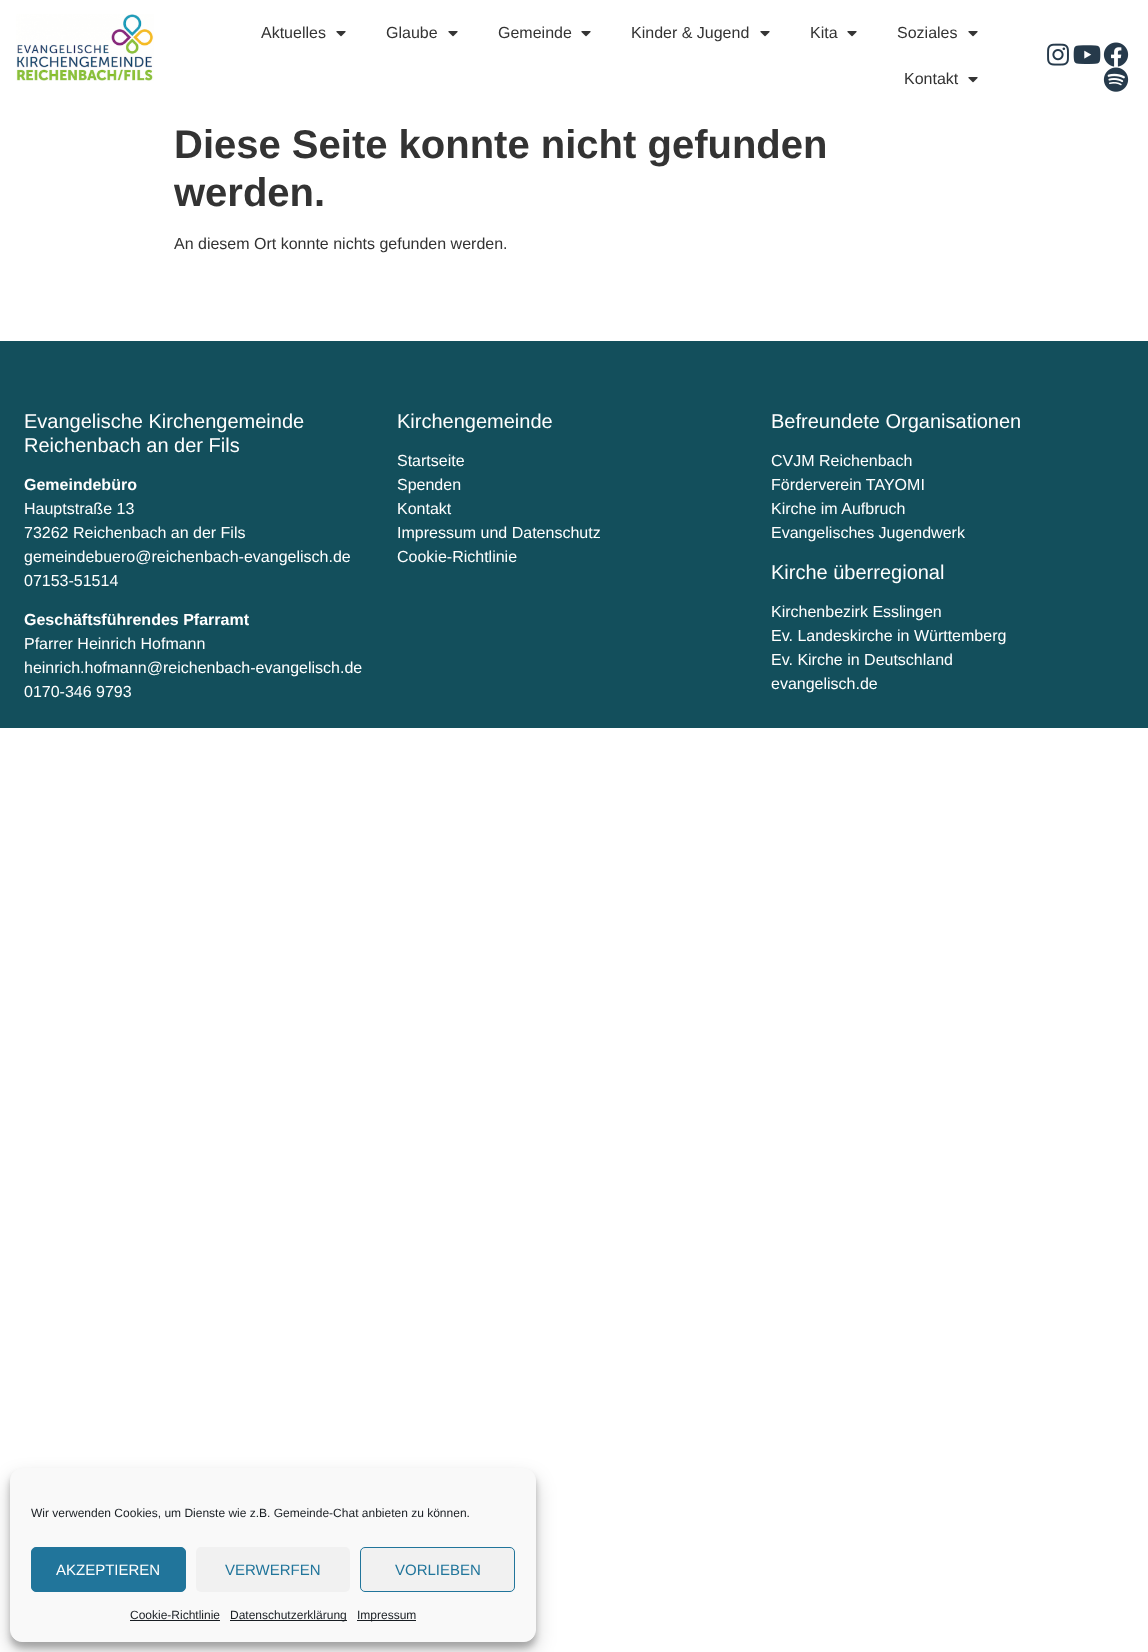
<svg xmlns="http://www.w3.org/2000/svg" xmlns:xlink="http://www.w3.org/1999/xlink" width="1148" height="1652" viewBox="0 0 1148 1652">
<style>
.cls-1{font:16px Liberation Sans;fill:#333333}
.cls-2{font:bold 40px Liberation Sans;fill:#333333}
.cls-3{font:20px Liberation Sans;fill:#ffffff}
.cls-4{font:bold 16px Liberation Sans;fill:#ffffff}
.cls-5{font:16px Liberation Sans;fill:#ffffff}
.cls-6{font:12px Liberation Sans;fill:#191e23}
.cls-7{font:15px Liberation Sans;fill:#ffffff}
.cls-8{font:15px Liberation Sans;fill:#21759b}
</style>
<rect width="100%" height="100%" fill="#ffffff"/>
<image xlink:href="image0.png" x="16" y="14" width="138" height="67"/>
<image xlink:href="image1.png" x="336" y="31" width="10" height="6"/>
<image xlink:href="image1.png" x="448" y="31" width="10" height="6"/>
<image xlink:href="image1.png" x="581" y="31" width="10" height="6"/>
<image xlink:href="image1.png" x="760" y="31" width="10" height="6"/>
<image xlink:href="image1.png" x="847" y="31" width="10" height="6"/>
<image xlink:href="image1.png" x="968" y="31" width="10" height="6"/>
<image xlink:href="image1.png" x="968" y="77" width="10" height="6"/>
<image xlink:href="image2.png" x="1047" y="43" width="22" height="23"/>
<image xlink:href="image3.png" x="1073" y="45" width="28" height="19"/>
<image xlink:href="image4.png" x="1103" y="42" width="26" height="25"/>
<image xlink:href="image5.png" x="1103" y="67" width="26" height="25"/>
<rect fill="#134f5c" x="0" y="341" width="1148" height="387"/>
<rect fill="#000000" fill-opacity="0.23" filter="blur(3px)" x="10" y="1474" width="526" height="174" rx="12"/>
<rect fill="#000000" fill-opacity="0.19" filter="blur(10px)" x="10" y="1478" width="526" height="174" rx="12"/>
<rect fill="#f9f9f9" stroke="#f9f9f9" x="10.5" y="1468.5" width="525" height="173" rx="11.5"/>
<rect fill="#21759b" stroke="#21759b" x="31.5" y="1547.5" width="154" height="44" rx="4.5"/>
<rect fill="#f1f1f1" x="196" y="1547" width="154" height="45" rx="5"/>
<rect fill="#f1f1f1" stroke="#21759b" x="360.5" y="1547.5" width="154" height="44" rx="4.5"/>
<rect fill="#191e23" x="130" y="1620" width="90" height="1"/>
<rect fill="#191e23" x="230" y="1620" width="117" height="1"/>
<rect fill="#191e23" x="357" y="1620" width="59" height="1"/>
<text class="cls-1" x="261" y="38">Aktuelles</text>
<text class="cls-1" x="386" y="38">Glaube</text>
<text class="cls-1" x="498" y="38">Gemeinde</text>
<text class="cls-1" x="631" y="38">Kinder &amp; Jugend</text>
<text class="cls-1" x="810" y="38">Kita</text>
<text class="cls-1" x="897" y="38">Soziales</text>
<text class="cls-1" x="904" y="84">Kontakt</text>
<text class="cls-2"><tspan x="174" y="158">Diese Seite konnte nicht gefunden</tspan><tspan x="174" y="206">werden.</tspan></text>
<text class="cls-1" x="174" y="249">An diesem Ort konnte nichts gefunden werden.</text>
<text class="cls-3"><tspan x="24" y="428">Evangelische Kirchengemeinde</tspan><tspan x="24" y="452">Reichenbach an der Fils</tspan></text>
<text class="cls-4" x="24" y="490">Gemeindebüro</text>
<text class="cls-5"><tspan x="24" y="514">Hauptstraße 13</tspan><tspan x="24" y="538">73262 Reichenbach an der Fils</tspan><tspan x="24" y="562">gemeindebuero@reichenbach-evangelisch.de</tspan><tspan x="24" y="586">07153-51514</tspan></text>
<text class="cls-4" x="24" y="625">Geschäftsführendes Pfarramt</text>
<text class="cls-5"><tspan x="24" y="649">Pfarrer Heinrich Hofmann</tspan><tspan x="24" y="673">heinrich.hofmann@reichenbach-evangelisch.de</tspan><tspan x="24" y="697">0170-346 9793</tspan></text>
<text class="cls-3" x="397" y="428">Kirchengemeinde</text>
<text class="cls-5"><tspan x="397" y="466">Startseite</tspan><tspan x="397" y="490">Spenden</tspan><tspan x="397" y="514">Kontakt</tspan><tspan x="397" y="538">Impressum und Datenschutz</tspan><tspan x="397" y="562">Cookie-Richtlinie</tspan></text>
<text class="cls-3" x="771" y="428">Befreundete Organisationen</text>
<text class="cls-5"><tspan x="771" y="466">CVJM Reichenbach</tspan><tspan x="771" y="490">Förderverein TAYOMI</tspan><tspan x="771" y="514">Kirche im Aufbruch</tspan><tspan x="771" y="538">Evangelisches Jugendwerk</tspan></text>
<text class="cls-3" x="771" y="579">Kirche überregional</text>
<text class="cls-5"><tspan x="771" y="617">Kirchenbezirk Esslingen</tspan><tspan x="771" y="641">Ev. Landeskirche in Württemberg</tspan><tspan x="771" y="665">Ev. Kirche in Deutschland</tspan><tspan x="771" y="689">evangelisch.de</tspan></text>
<text class="cls-6" x="31" y="1517">Wir verwenden Cookies, um Dienste wie z.B. Gemeinde-Chat anbieten zu können.</text>
<text class="cls-7" x="56" y="1575">AKZEPTIEREN</text>
<text class="cls-8" x="225" y="1575">VERWERFEN</text>
<text class="cls-8" x="395" y="1575">VORLIEBEN</text>
<text class="cls-6" x="130" y="1619">Cookie-Richtlinie</text>
<text class="cls-6" x="230" y="1619">Datenschutzerklärung</text>
<text class="cls-6" x="357" y="1619">Impressum</text>
</svg>
